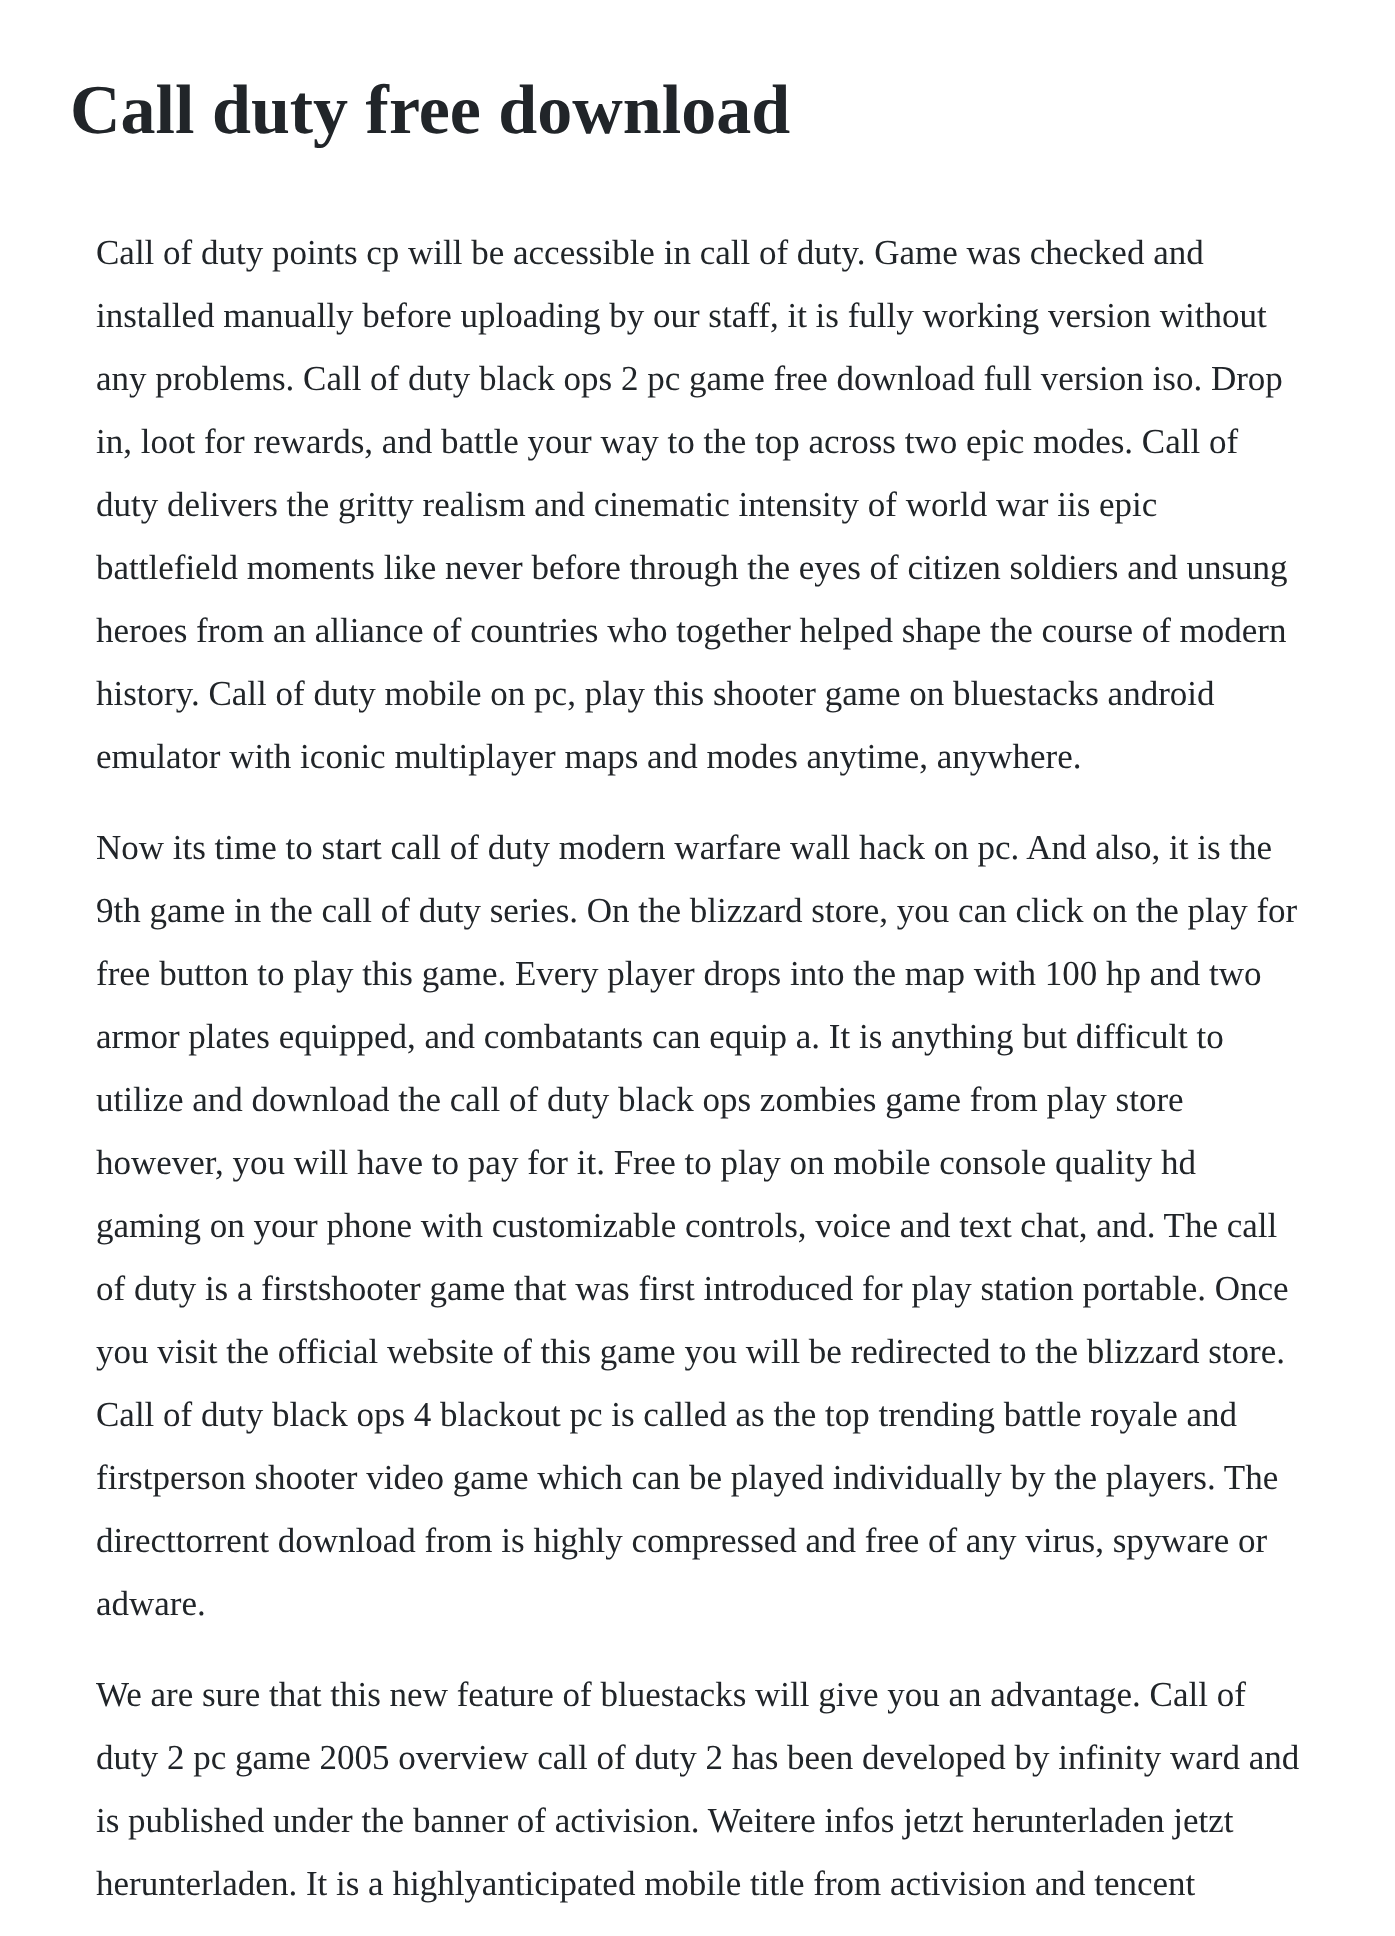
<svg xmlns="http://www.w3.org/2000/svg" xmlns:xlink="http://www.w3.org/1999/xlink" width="1395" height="1936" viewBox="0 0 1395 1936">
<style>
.cls-1{font:bold 70px Liberation Serif;fill:#212529}
.cls-2{font:35px Liberation Serif;fill:#212529}
</style>
<rect width="100%" height="100%" fill="#ffffff"/>
<text class="cls-1" x="70" y="133">Call duty free download</text>
<text class="cls-2"><tspan x="96" y="264">Call of duty points cp will be accessible in call of duty. Game was checked and</tspan><tspan x="96" y="327">installed manually before uploading by our staff, it is fully working version without</tspan><tspan x="96" y="390">any problems. Call of duty black ops 2 pc game free download full version iso. Drop</tspan><tspan x="96" y="453">in, loot for rewards, and battle your way to the top across two epic modes. Call of</tspan><tspan x="96" y="516">duty delivers the gritty realism and cinematic intensity of world war iis epic</tspan><tspan x="96" y="579">battlefield moments like never before through the eyes of citizen soldiers and unsung</tspan><tspan x="96" y="642">heroes from an alliance of countries who together helped shape the course of modern</tspan><tspan x="96" y="705">history. Call of duty mobile on pc, play this shooter game on bluestacks android</tspan><tspan x="96" y="768">emulator with iconic multiplayer maps and modes anytime, anywhere.</tspan></text>
<text class="cls-2"><tspan x="96" y="859">Now its time to start call of duty modern warfare wall hack on pc. And also, it is the</tspan><tspan x="96" y="922">9th game in the call of duty series. On the blizzard store, you can click on the play for</tspan><tspan x="96" y="985">free button to play this game. Every player drops into the map with 100 hp and two</tspan><tspan x="96" y="1048">armor plates equipped, and combatants can equip a. It is anything but difficult to</tspan><tspan x="96" y="1111">utilize and download the call of duty black ops zombies game from play store</tspan><tspan x="96" y="1174">however, you will have to pay for it. Free to play on mobile console quality hd</tspan><tspan x="96" y="1237">gaming on your phone with customizable controls, voice and text chat, and. The call</tspan><tspan x="96" y="1300">of duty is a firstshooter game that was first introduced for play station portable. Once</tspan><tspan x="96" y="1363">you visit the official website of this game you will be redirected to the blizzard store.</tspan><tspan x="96" y="1426">Call of duty black ops 4 blackout pc is called as the top trending battle royale and</tspan><tspan x="96" y="1489">firstperson shooter video game which can be played individually by the players. The</tspan><tspan x="96" y="1552">directtorrent download from is highly compressed and free of any virus, spyware or</tspan><tspan x="96" y="1615">adware.</tspan></text>
<text class="cls-2"><tspan x="96" y="1706">We are sure that this new feature of bluestacks will give you an advantage. Call of</tspan><tspan x="96" y="1769">duty 2 pc game 2005 overview call of duty 2 has been developed by infinity ward and</tspan><tspan x="96" y="1832">is published under the banner of activision. Weitere infos jetzt herunterladen jetzt</tspan><tspan x="96" y="1895">herunterladen. It is a highlyanticipated mobile title from activision and tencent</tspan></text>
</svg>
